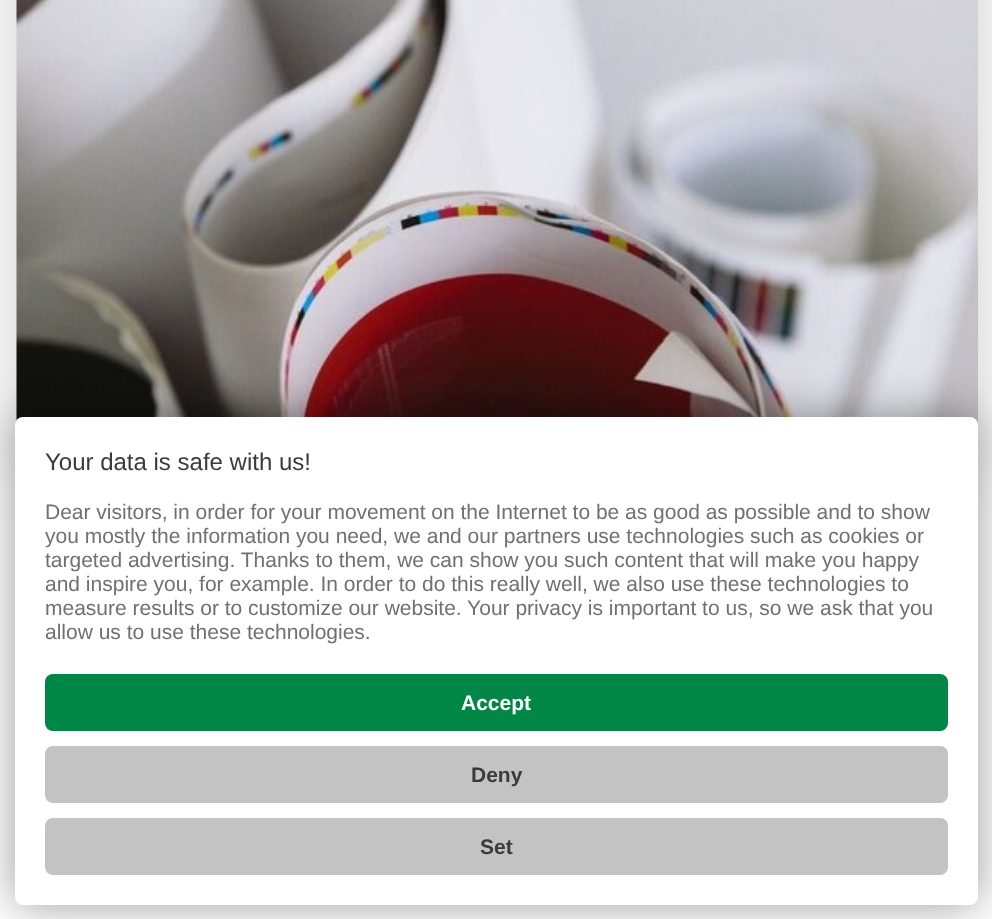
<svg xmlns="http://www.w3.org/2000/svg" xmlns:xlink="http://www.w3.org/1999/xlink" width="992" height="919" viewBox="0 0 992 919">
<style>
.cls-1{font:24px Liberation Sans;fill:#3b3b3b}
.cls-2{font:21px Liberation Sans;fill:#707070}
.cls-3{font:bold 21px Liberation Sans;fill:#ffffff}
.cls-4{font:bold 21px Liberation Sans;fill:#3b3b3b}
</style>
<rect width="100%" height="100%" fill="#ffffff"/>
<rect fill="#000000" fill-opacity="0.2" filter="blur(37.5px)" x="17" y="-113" width="961" height="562"/>
<image xlink:href="image0.png" x="16" y="0" width="962" height="425"/>
<rect fill="#000000" fill-opacity="0.4" filter="blur(22.5px)" x="15" y="417" width="963" height="488" rx="8"/>
<rect fill="#ffffff" x="15" y="417" width="963" height="488" rx="8"/>
<rect fill="#008745" x="45" y="674" width="903" height="57" rx="8"/>
<rect fill="#c3c3c3" x="45" y="746" width="903" height="57" rx="8"/>
<rect fill="#c3c3c3" x="45" y="818" width="903" height="57" rx="8"/>
<text class="cls-1" x="45" y="470">Your data is safe with us!</text>
<text class="cls-2"><tspan x="45" y="519">Dear visitors, in order for your movement on the Internet to be as good as possible and to show</tspan><tspan x="45" y="543">you mostly the information you need, we and our partners use technologies such as cookies or</tspan><tspan x="45" y="567">targeted advertising. Thanks to them, we can show you such content that will make you happy</tspan><tspan x="45" y="591">and inspire you, for example. In order to do this really well, we also use these technologies to</tspan><tspan x="45" y="615">measure results or to customize our website. Your privacy is important to us, so we ask that you</tspan><tspan x="45" y="639">allow us to use these technologies.</tspan></text>
<text class="cls-3" x="461" y="710">Accept</text>
<text class="cls-4" x="471" y="782">Deny</text>
<text class="cls-4" x="480" y="854">Set</text>
</svg>
